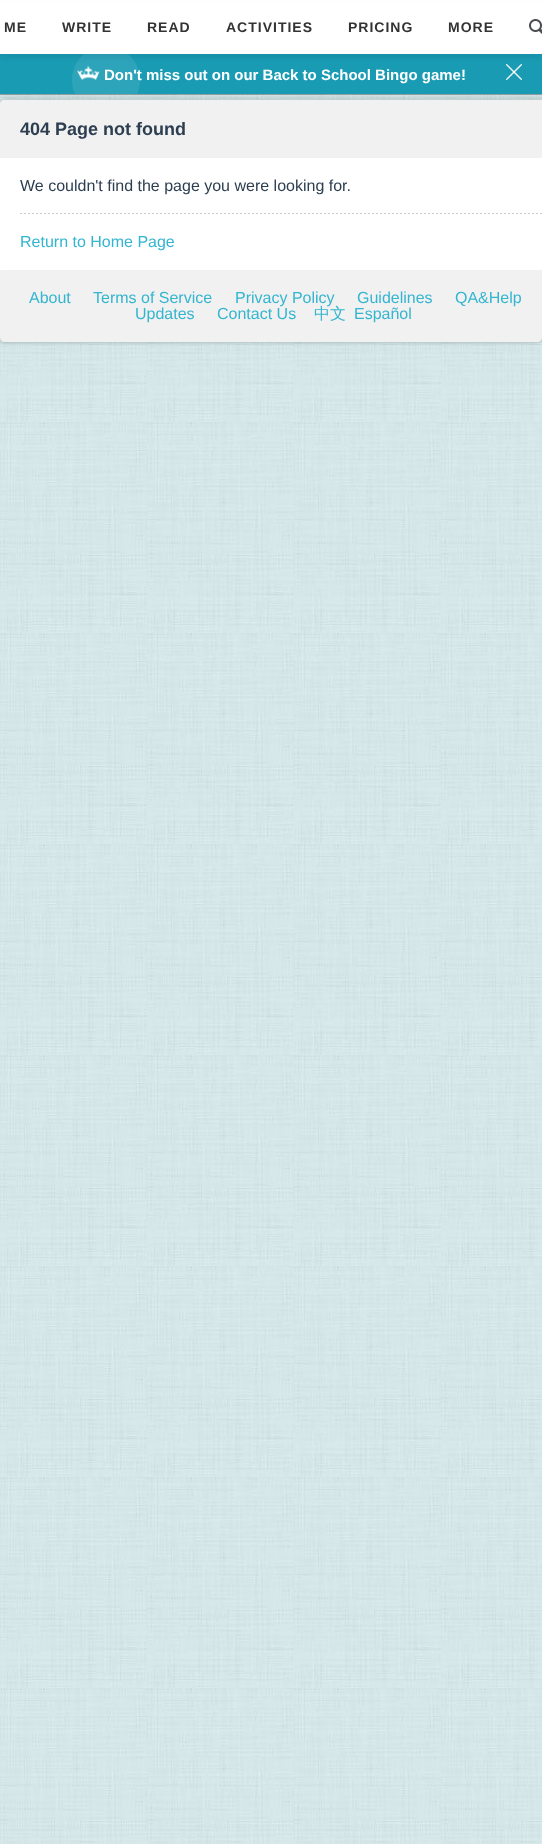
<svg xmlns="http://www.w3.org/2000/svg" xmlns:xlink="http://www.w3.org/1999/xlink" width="542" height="1844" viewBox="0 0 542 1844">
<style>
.cls-1{font:bold 14px Liberation Sans;letter-spacing:1px;fill:#333333}
.cls-2{font:bold 15px Liberation Sans;fill:#ffffff}
.cls-3{font:bold 18px Liberation Sans;fill:#2c3e50}
.cls-4{font:16px Liberation Sans;fill:#2c3e50}
.cls-5{font:16px Liberation Sans;fill:#34b5d0}
.cls-6{font:500 16px WenQuanYi Zen Hei;fill:#34b5d0}
</style>
<rect width="100%" height="100%" fill="#ffffff"/>
<image xlink:href="image0.png" x="0" y="94" width="542" height="1750"/>
<rect fill="#000000" fill-opacity="0.3" filter="blur(0.5px)" x="0" y="55" width="542" height="40"/>
<rect fill="#000000" fill-opacity="0.2" filter="blur(5px)" x="0" y="100" width="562" height="170" rx="5"/>
<image xlink:href="image2.png" x="0" y="54" width="542" height="40"/>
<image xlink:href="image4.png" x="506" y="64" width="16" height="16"/>
<rect fill="#000000" fill-opacity="0.06" filter="blur(2px)" x="0" y="4" width="542" height="54"/>
<rect fill="#ffffff" x="0" y="2" width="542" height="52"/>
<image xlink:href="image1.png" x="529" y="19" width="13" height="15"/>
<image xlink:href="image3.png" x="77" y="65" width="23" height="16"/>
<rect fill="#ffffff" x="0" y="100" width="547" height="170" rx="5"/>
<path fill="#f1f1f1" d="M5 100H542C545 100 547 102 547 105V158H0V105C0 102 2 100 5 100Z"/>
<image xlink:href="image5.png" x="20" y="213" width="522" height="1"/>
<rect fill="#000000" fill-opacity="0.25" filter="blur(2.5px)" x="0" y="270" width="542" height="72" rx="5"/>
<path fill="#f1f1f1" d="M0 270H542V337C542 340 540 342 537 342H5C2 342 0 340 0 337Z"/>
<rect fill="#ffffff" x="0" y="265" width="542" height="5"/>
<text class="cls-1" x="4" y="32">ME</text>
<text class="cls-1" x="62" y="32">WRITE</text>
<text class="cls-1" x="147" y="32">READ</text>
<text class="cls-1" x="226" y="32">ACTIVITIES</text>
<text class="cls-1" x="348" y="32">PRICING</text>
<text class="cls-1" x="448" y="32">MORE</text>
<text class="cls-2" x="104" y="80">Don't miss out on our Back to School Bingo game!</text>
<text class="cls-3" x="20" y="135">404 Page not found</text>
<text class="cls-4" x="20" y="191">We couldn't find the page you were looking for.</text>
<text class="cls-5" x="20" y="247">Return to Home Page</text>
<text class="cls-5" x="29" y="303">About</text>
<text class="cls-5" x="93" y="303">Terms of Service</text>
<text class="cls-5" x="235" y="303">Privacy Policy</text>
<text class="cls-5" x="357" y="303">Guidelines</text>
<text class="cls-5" x="455" y="303">QA&amp;Help</text>
<text class="cls-5" x="135" y="319">Updates</text>
<text class="cls-5" x="217" y="319">Contact Us</text>
<text class="cls-6" x="314" y="319">中文</text>
<text class="cls-5" x="354" y="319">Español</text>
</svg>
